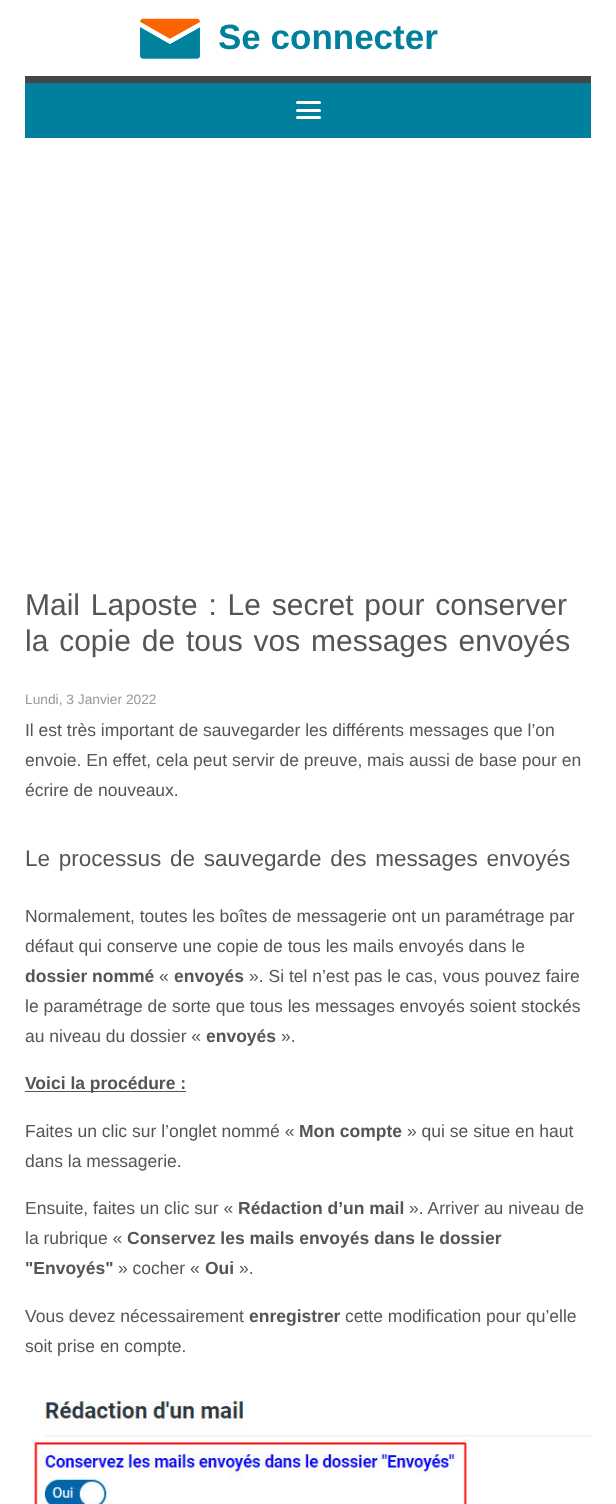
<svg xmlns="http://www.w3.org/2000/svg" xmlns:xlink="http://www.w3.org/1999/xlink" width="616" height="1504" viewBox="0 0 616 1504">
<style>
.cls-1{font:bold 35px Liberation Sans;fill:#00809c}
.cls-2{font:30px Liberation Sans;fill:#555555}
.cls-3{font:13.75px Liberation Sans;fill:#999999}
.cls-4{font:17.5px Liberation Sans;fill:#555555}
.cls-5{font:22.5px Liberation Sans;fill:#555555}
.cls-6{font:bold 17.5px Liberation Sans;fill:#555555}
</style>
<rect width="100%" height="100%" fill="#ffffff"/>
<rect fill="#444444" x="25" y="76" width="566" height="7"/>
<image xlink:href="image0.png" x="140" y="18" width="60" height="41"/>
<rect fill="#00809c" x="25" y="83" width="566" height="55"/>
<rect fill="#ffffff" x="296" y="101" width="25" height="3" rx="1.5"/>
<rect fill="#ffffff" x="296" y="109" width="25" height="3" rx="1.5"/>
<rect fill="#ffffff" x="296" y="116" width="25" height="3" rx="1.5"/>
<rect fill="#555555" x="25" y="1091" width="161" height="1"/>
<image xlink:href="image1.png" x="32" y="1400" width="559" height="104"/>
<text class="cls-1" x="218" y="49">Se connecter</text>
<text class="cls-2"><tspan x="25" y="615" word-spacing="2.5">Mail Laposte : Le secret pour conserver</tspan><tspan x="25" y="651" word-spacing="2.5">la copie de tous vos messages envoyés</tspan></text>
<text class="cls-3" x="25" y="704">Lundi, 3 Janvier 2022</text>
<text class="cls-4"><tspan x="25" y="736">Il est très important de sauvegarder les différents messages que l’on</tspan><tspan x="25" y="766">envoie. En effet, cela peut servir de preuve, mais aussi de base pour en</tspan><tspan x="25" y="796">écrire de nouveaux.</tspan></text>
<text class="cls-5" x="25" y="866" word-spacing="2.5">Le processus de sauvegarde des messages envoyés</text>
<text class="cls-4"><tspan x="25" y="922">Normalement, toutes les boîtes de messagerie ont un paramétrage par</tspan><tspan x="25" y="952">défaut qui conserve une copie de tous les mails envoyés dans le</tspan></text>
<text class="cls-6" x="25" y="982">dossier nommé</text>
<text class="cls-4" x="159" y="982">«</text>
<text class="cls-6" x="174" y="982">envoyés</text>
<text class="cls-4" x="249" y="982">». Si tel n’est pas le cas, vous pouvez faire</text>
<text class="cls-4"><tspan x="25" y="1012">le paramétrage de sorte que tous les messages envoyés soient stockés</tspan><tspan x="25" y="1042">au niveau du dossier «</tspan></text>
<text class="cls-6" x="206" y="1042">envoyés</text>
<text class="cls-4" x="281" y="1042">».</text>
<text class="cls-6" x="25" y="1089">Voici la procédure :</text>
<text class="cls-4" x="25" y="1137">Faites un clic sur l’onglet nommé «</text>
<text class="cls-6" x="299" y="1137">Mon compte</text>
<text class="cls-4" x="407" y="1137">» qui se situe en haut</text>
<text class="cls-4" x="25" y="1167">dans la messagerie.</text>
<text class="cls-4" x="25" y="1214">Ensuite, faites un clic sur «</text>
<text class="cls-6" x="238" y="1214">Rédaction d’un mail</text>
<text class="cls-4" x="409" y="1214">». Arriver au niveau de</text>
<text class="cls-4" x="25" y="1244">la rubrique «</text>
<text class="cls-6" x="127" y="1244">Conservez les mails envoyés dans le dossier</text>
<text class="cls-6" x="25" y="1274">"Envoyés"</text>
<text class="cls-4" x="118" y="1274">» cocher «</text>
<text class="cls-6" x="205" y="1274">Oui</text>
<text class="cls-4" x="239" y="1274">».</text>
<text class="cls-4" x="25" y="1322">Vous devez nécessairement</text>
<text class="cls-6" x="249" y="1322">enregistrer</text>
<text class="cls-4" x="345" y="1322">cette modification pour qu’elle</text>
<text class="cls-4" x="25" y="1352">soit prise en compte.</text>
</svg>
